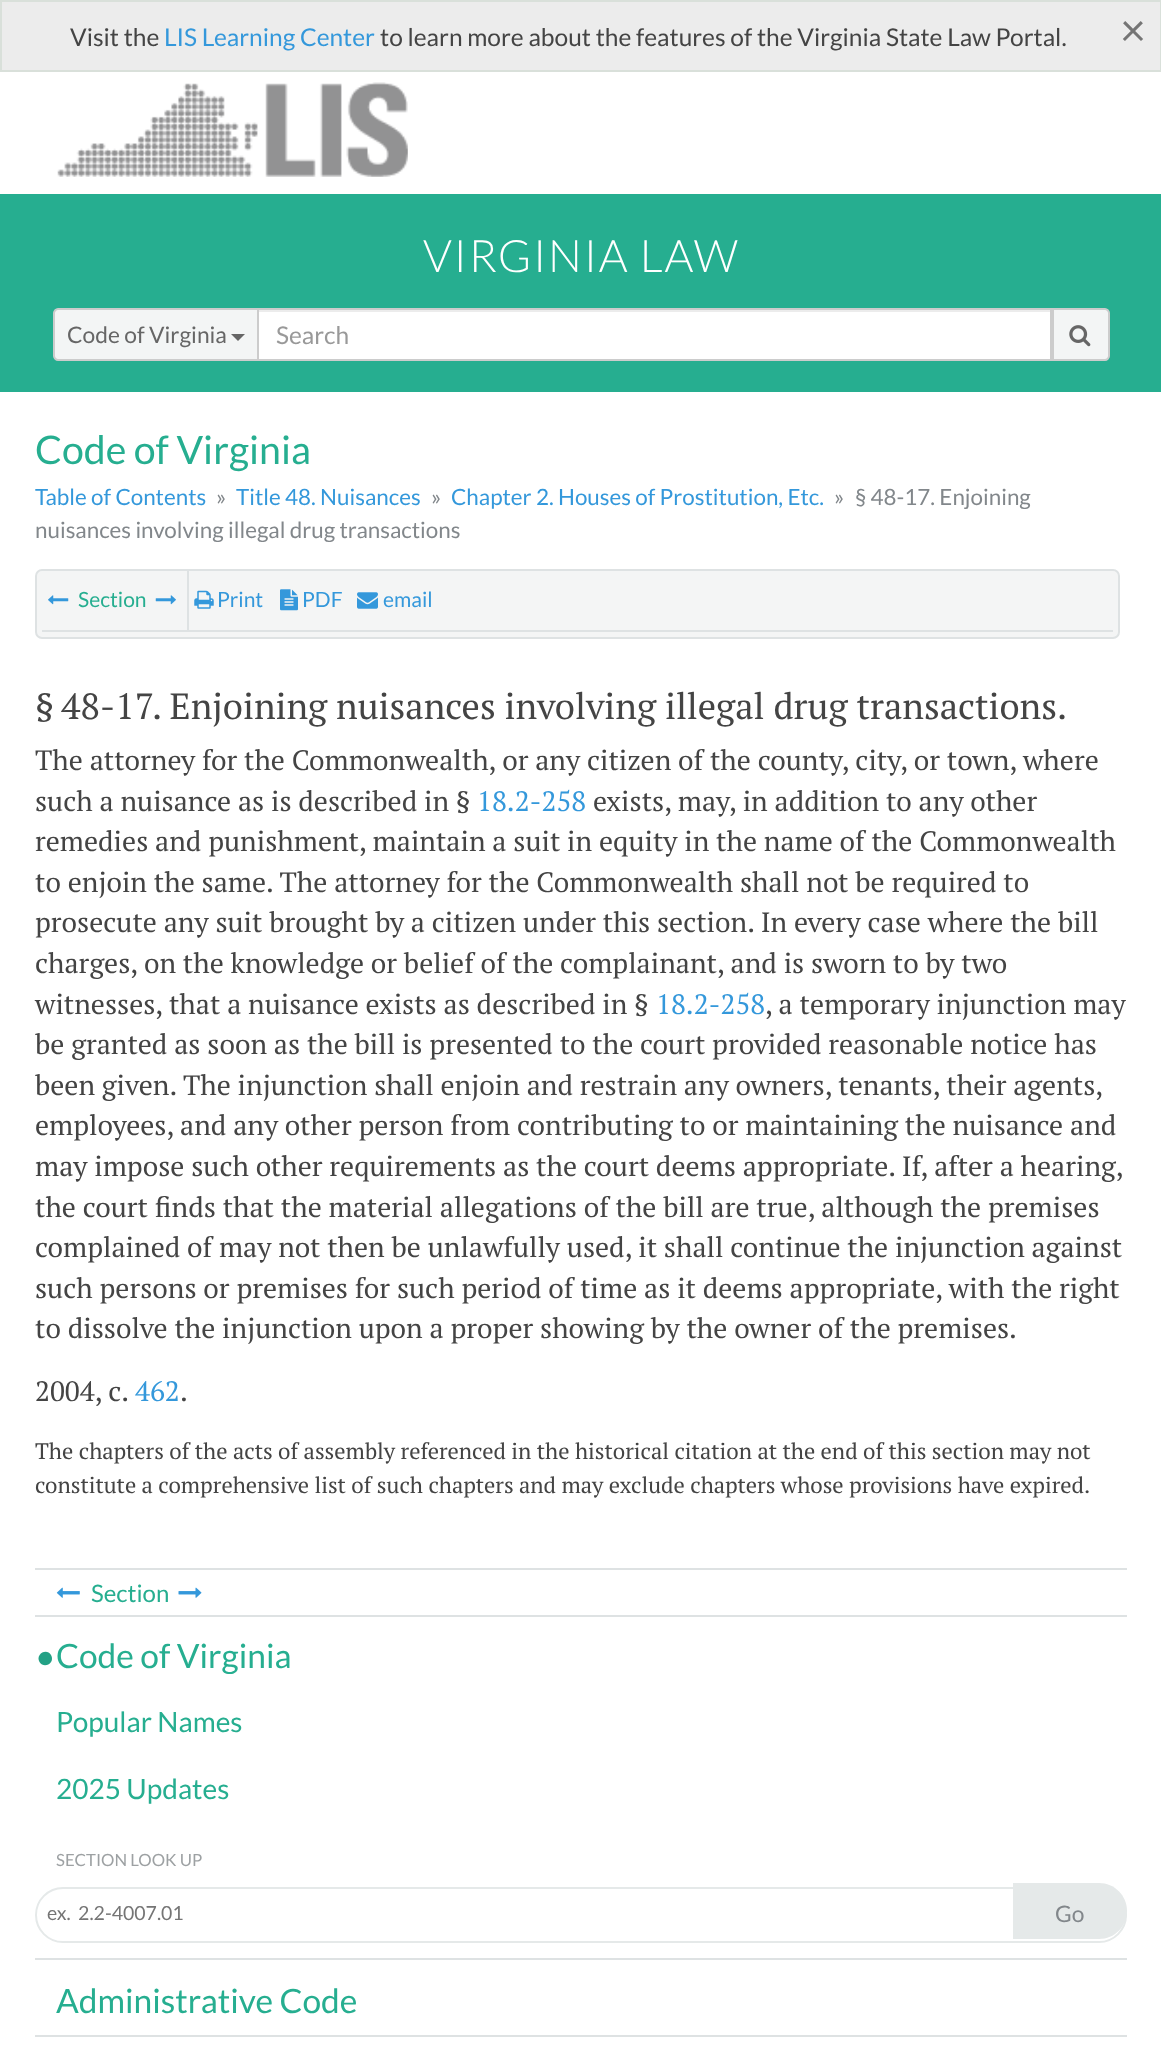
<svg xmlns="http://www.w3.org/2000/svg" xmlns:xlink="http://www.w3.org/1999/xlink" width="1161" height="2049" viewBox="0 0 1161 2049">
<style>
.cls-1{font:24.5px Lato;fill:#444444}
.cls-2{font:24.5px Lato;fill:#3498db}
.cls-3{font:45px Lato;fill:#757575}
.cls-4{font:300 44.75px Lato;letter-spacing:1.75px;fill:#ffffff}
.cls-5{font:22.75px Lato;fill:#666666}
.cls-6{font:24.5px Lato;fill:#999999}
.cls-7{font:39.25px Lato;fill:#26ae90}
.cls-8{font:22.4px Lato;fill:#3498db}
.cls-9{font:22.4px Lato;fill:#82878b}
.cls-10{font:21px Lato;fill:#26ae90}
.cls-11{font:21px Lato;fill:#3498db}
.cls-12{font:36.4px PT Serif;fill:#444444}
.cls-13{font:28px PT Serif;fill:#444444}
.cls-14{font:28px PT Serif;fill:#3498db}
.cls-15{font:22.4px PT Serif;fill:#444444}
.cls-16{font:24px Lato;fill:#26ae90}
.cls-17{font:33.5px Lato;fill:#26ae90}
.cls-18{font:28px Lato;fill:#26ae90}
.cls-19{font:16.75px Lato;fill:#9da1a3}
.cls-20{font:19.5px Lato;fill:#757575}
.cls-21{font:22.75px Lato;fill:#82878b}
</style>
<rect width="100%" height="100%" fill="#ffffff"/>
<rect fill="#ececec" stroke="#d9e0da" stroke-width="2" x="1" y="1" width="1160" height="70"/>
<image xlink:href="image0.png" x="57" y="82" width="351" height="95"/>
<rect fill="#26ae90" x="0" y="194" width="1161" height="198"/>
<rect fill="#ffffff" x="259" y="312" width="791" height="47"/>
<rect fill="#ececec" x="259" y="310" width="791" height="2"/>
<rect fill="none" stroke="#cccccc" stroke-width="2" x="258" y="309" width="793" height="51"/>
<path fill="#f3f5f5" stroke="#cccccc" stroke-width="2" d="M58 309H258V360H58C56 360 54 358 54 356V313C54 311 56 309 58 309Z"/>
<path fill="#666666" d="M231 334H245L238 341Z"/>
<path fill="#f3f5f5" stroke="#cccccc" stroke-width="2" d="M1053 309H1105C1107 309 1109 311 1109 313V356C1109 358 1107 360 1105 360H1053Z"/>
<image xlink:href="image1.png" x="1069" y="325" width="22" height="22"/>
<rect fill="#f4f5f5" stroke="#dee2e3" stroke-width="2" x="36" y="570" width="1083" height="68" rx="6"/>
<rect fill="#dee2e3" x="187" y="571" width="2" height="59"/>
<image xlink:href="image2.png" x="48" y="595" width="21" height="10"/>
<image xlink:href="image3.png" x="155" y="595" width="21" height="10"/>
<image xlink:href="image4.png" x="194" y="590" width="20" height="19"/>
<image xlink:href="image5.png" x="280" y="589" width="18" height="22"/>
<image xlink:href="image6.png" x="357" y="592" width="21" height="17"/>
<rect fill="#dee2e3" x="42" y="630" width="1071" height="2"/>
<rect fill="#dee2e3" x="35" y="1568" width="1092" height="2"/>
<image xlink:href="image7.png" x="56" y="1587" width="24" height="11"/>
<image xlink:href="image8.png" x="178" y="1587" width="24" height="11"/>
<rect fill="#dee2e3" x="35" y="1615" width="1092" height="2"/>
<path fill="#23a185" d="M51 1655C55.5 1663 44 1669.5 39.5 1662C35 1654.5 46.5 1647.5 51 1655Z"/>
<rect fill="none" stroke="#e5e9e9" stroke-width="2" x="36" y="1888" width="1090" height="54" rx="27"/>
<path fill="#e5e9e9" d="M1013 1883H1099C1114.5 1883 1127 1895.5 1127 1911C1127 1926.5 1114.5 1939 1099 1939H1013Z"/>
<rect fill="#dee2e3" x="35" y="1958" width="1092" height="2"/>
<rect fill="#dee2e3" x="35" y="2035" width="1092" height="2"/>
<text class="cls-1" x="70" y="46">Visit the</text>
<text class="cls-2" x="164" y="46">LIS Learning Center</text>
<text class="cls-1" x="380" y="46">to learn more about the features of the Virginia State Law Portal.</text>
<text class="cls-3" x="1120" y="46">×</text>
<text class="cls-4" x="423" y="272">VIRGINIA LAW</text>
<text class="cls-5" x="67" y="343">Code of Virginia</text>
<text class="cls-6" x="276" y="344">Search</text>
<text class="cls-7" x="35" y="464">Code of Virginia</text>
<text class="cls-8" x="35" y="505">Table of Contents</text>
<text class="cls-9" x="216" y="505">»</text>
<text class="cls-8" x="236" y="505">Title 48. Nuisances</text>
<text class="cls-9" x="431" y="505">»</text>
<text class="cls-8" x="451" y="505">Chapter 2. Houses of Prostitution, Etc.</text>
<text class="cls-9" x="834" y="505">»</text>
<text class="cls-9" x="855" y="505">§ 48-17. Enjoining</text>
<text class="cls-9" x="35" y="538">nuisances involving illegal drug transactions</text>
<text class="cls-10" x="78" y="607">Section</text>
<text class="cls-11" x="217" y="607">Print</text>
<text class="cls-11" x="302" y="607">PDF</text>
<text class="cls-11" x="383" y="607">email</text>
<text class="cls-12" x="35" y="719" word-spacing="-2">§ 48-17</text>
<text class="cls-12" x="152" y="719">. Enjoining nuisances involving illegal drug transactions.</text>
<text class="cls-13"><tspan x="35" y="770">The attorney for the Commonwealth, or any citizen of the county, city, or town, where</tspan><tspan x="35" y="811">such a nuisance as is described in §</tspan></text>
<text class="cls-14" x="477" y="811">18.2-258</text>
<text class="cls-13" x="593" y="811">exists, may, in addition to any other</text>
<text class="cls-13"><tspan x="35" y="851">remedies and punishment, maintain a suit in equity in the name of the Commonwealth</tspan><tspan x="35" y="892">to enjoin the same. The attorney for the Commonwealth shall not be required to</tspan><tspan x="35" y="932">prosecute any suit brought by a citizen under this section. In every case where the bill</tspan><tspan x="35" y="973">charges, on the knowledge or belief of the complainant, and is sworn to by two</tspan><tspan x="35" y="1014">witnesses, that a nuisance exists as described in §</tspan></text>
<text class="cls-14" x="656" y="1014">18.2-258</text>
<text class="cls-13" x="765" y="1014">, a temporary injunction may</text>
<text class="cls-13"><tspan x="35" y="1054">be granted as soon as the bill is presented to the court provided reasonable notice has</tspan><tspan x="35" y="1095">been given. The injunction shall enjoin and restrain any owners, tenants, their agents,</tspan><tspan x="35" y="1135">employees, and any other person from contributing to or maintaining the nuisance and</tspan><tspan x="35" y="1176">may impose such other requirements as the court deems appropriate. If, after a hearing,</tspan><tspan x="35" y="1217">the court finds that the material allegations of the bill are true, although the premises</tspan><tspan x="35" y="1257">complained of may not then be unlawfully used, it shall continue the injunction against</tspan><tspan x="35" y="1298">such persons or premises for such period of time as it deems appropriate, with the right</tspan><tspan x="35" y="1338">to dissolve the injunction upon a proper showing by the owner of the premises.</tspan></text>
<text class="cls-13" x="35" y="1401">2004, c.</text>
<text class="cls-14" x="135" y="1401">462</text>
<text class="cls-13" x="180" y="1401">.</text>
<text class="cls-15"><tspan x="35" y="1459">The chapters of the acts of assembly referenced in the historical citation at the end of this section may not</tspan><tspan x="35" y="1493">constitute a comprehensive list of such chapters and may exclude chapters whose provisions have expired.</tspan></text>
<text class="cls-16" x="91" y="1602">Section</text>
<text class="cls-17" x="56" y="1668">Code of Virginia</text>
<text class="cls-18" x="56" y="1732">Popular Names</text>
<text class="cls-18" x="56" y="1799">2025 Updates</text>
<text class="cls-19" x="56" y="1866">SECTION LOOK UP</text>
<text class="cls-20" xml:space="preserve" x="47" y="1920">ex.  2.2-4007.01</text>
<text class="cls-21" x="1055" y="1922">Go</text>
<text class="cls-17" x="56" y="2013">Administrative Code</text>
</svg>
